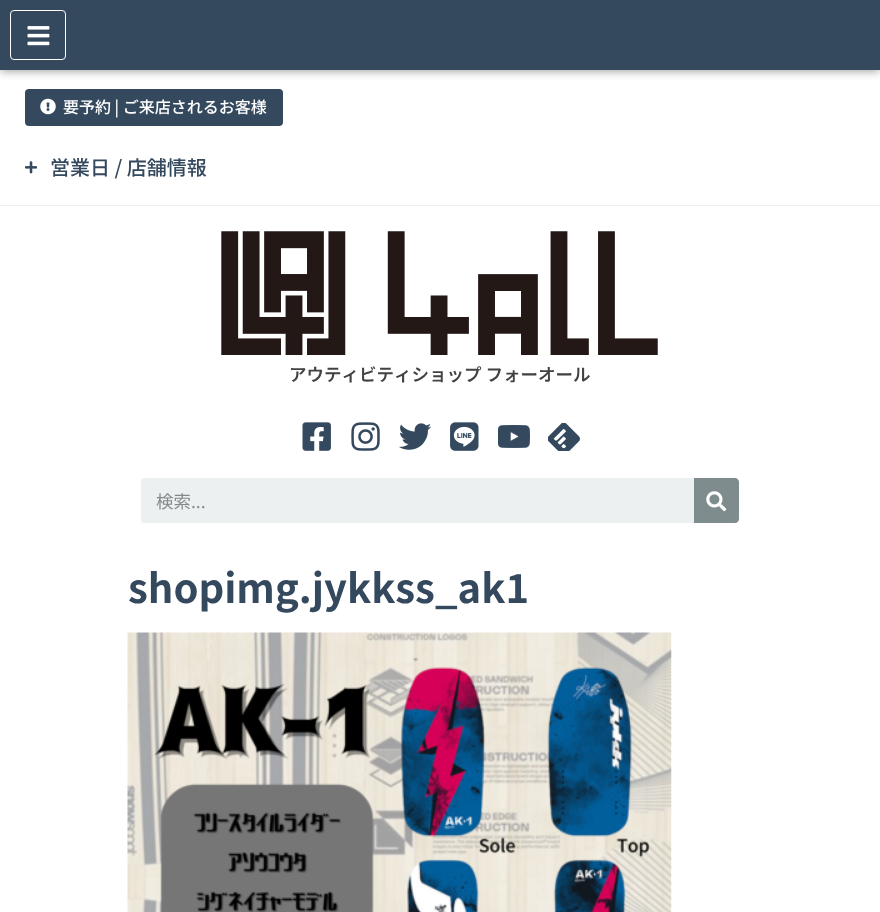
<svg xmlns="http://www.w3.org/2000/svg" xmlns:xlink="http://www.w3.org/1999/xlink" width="880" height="912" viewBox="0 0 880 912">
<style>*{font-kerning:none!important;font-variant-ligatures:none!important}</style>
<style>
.cls-1{font:500 16px Noto Sans JP;fill:#ffffff}
.cls-2{font:500 20px Noto Sans JP;fill:#34495e}
.cls-3{font:600 17.5px Noto Sans JP;fill:#424242}
.cls-4{font:17.5px Noto Sans JP;fill:#868888}
.cls-5{font:bold 40px Noto Sans JP;fill:#34495e}
</style>
<rect width="100%" height="100%" fill="#ffffff"/>
<rect fill="#000000" fill-opacity="0.4" filter="blur(5px)" x="0" y="1" width="880" height="70"/>
<rect fill="#34495e" x="0" y="0" width="880" height="70"/>
<rect fill="none" stroke="#ffffff" x="10.5" y="10.5" width="55" height="49" rx="3.5"/>
<image xlink:href="image0.png" x="27" y="26" width="23" height="20"/>
<rect fill="#ecf0f1" x="0" y="205" width="880" height="1"/>
<rect fill="#34495e" x="25" y="89" width="258" height="37" rx="4"/>
<image xlink:href="image1.png" x="40" y="98" width="16" height="17"/>
<image xlink:href="image2.png" x="25" y="161" width="13" height="13"/>
<image xlink:href="image3.png" x="221" y="231" width="437" height="124"/>
<image xlink:href="image4.png" x="302" y="422" width="29" height="29"/>
<image xlink:href="image5.png" x="351" y="422" width="29" height="29"/>
<image xlink:href="image6.png" x="399" y="423" width="33" height="27"/>
<image xlink:href="image7.png" x="450" y="422" width="29" height="29"/>
<image xlink:href="image8.png" x="498" y="425" width="32" height="23"/>
<image xlink:href="image9.png" x="548" y="423" width="32" height="28"/>
<rect fill="#ecf0f1" x="141" y="478" width="598" height="45" rx="4"/>
<path fill="#7f8c8d" d="M694 478H735C737 478 739 480 739 482V519C739 521 737 523 735 523H694Z"/>
<image xlink:href="image10.png" x="706" y="491" width="21" height="21"/>
<image xlink:href="image11.png" x="127" y="632" width="545" height="280"/>
<text class="cls-1" x="63" y="113">要予約 | ご来店されるお客様</text>
<text class="cls-2" x="50" y="175">営業日 / 店舗情報</text>
<text class="cls-3" x="289" y="381">アウティビティショップ フォーオール</text>
<text class="cls-4" x="156" y="508">検索...</text>
<text class="cls-5" x="128" y="603">shopimg.jykkss_ak1</text>
</svg>
